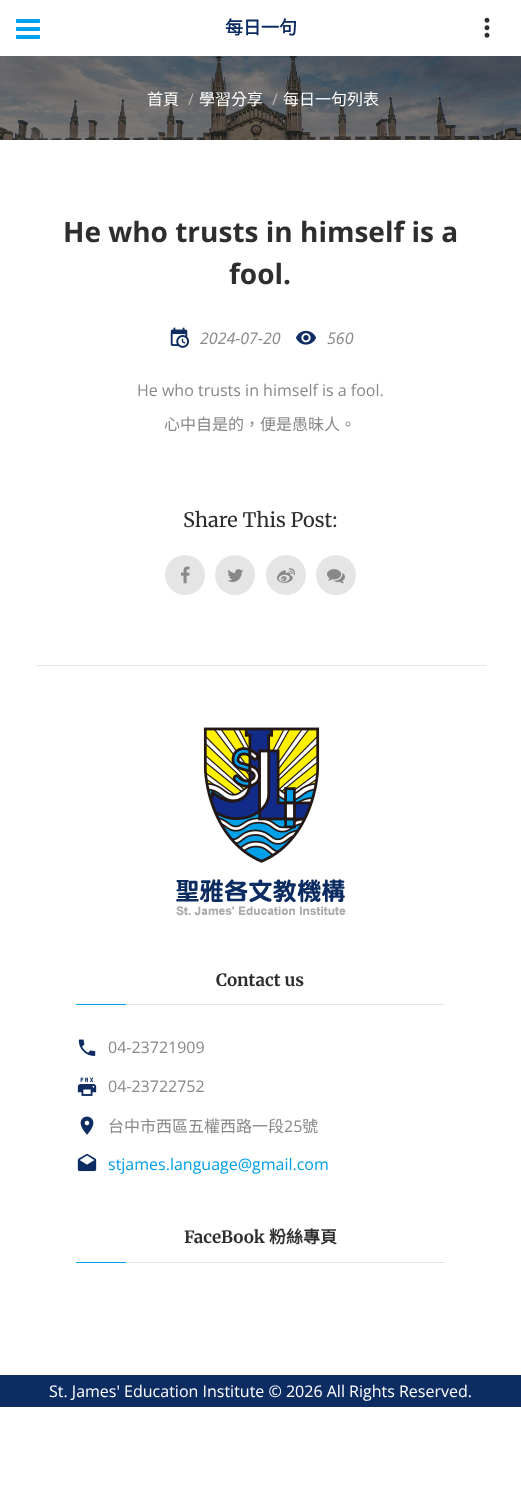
<svg xmlns="http://www.w3.org/2000/svg" xmlns:xlink="http://www.w3.org/1999/xlink" width="521" height="1489" viewBox="0 0 521 1489">
<style>
.cls-1{font:bold 18px Noto Sans CJK TC;fill:#0d2d62}
.cls-2{font:16px Noto Sans CJK TC;fill:#ffffff}
.cls-3{font:16px Open Sans;fill:#b2b3b4}
.cls-4{font:bold 28px Open Sans;fill:#2d2e2e}
.cls-5{font:italic 16px Open Sans;fill:#888888}
.cls-6{font:16px Open Sans;fill:#888888}
.cls-7{font:16px Noto Sans CJK TC;fill:#888888}
.cls-8{font:20px Merriweather;fill:#2d2e2e}
.cls-9{font:bold 17px Merriweather;fill:#2d2e2e}
.cls-10{font:16px Open Sans;fill:#009fe9}
.cls-11{font:bold 17px Noto Sans CJK TC;fill:#2d2e2e}
.cls-12{font:16px Open Sans;fill:#ffffff}
</style>
<rect width="100%" height="100%" fill="#ffffff"/>
<image xlink:href="image0.png" x="16" y="19" width="24" height="20"/>
<image xlink:href="image1.png" x="484" y="17" width="6" height="21"/>
<image xlink:href="image2.png" x="0" y="56" width="521" height="84"/>
<image xlink:href="image3.png" x="170" y="327" width="20" height="21"/>
<image xlink:href="image4.png" x="296" y="330" width="20" height="15"/>
<circle fill="#e5e5e5" cx="185" cy="575" r="20"/>
<image xlink:href="image5.png" x="180" y="566" width="10" height="18"/>
<circle fill="#e5e5e5" cx="235" cy="575" r="20"/>
<image xlink:href="image6.png" x="227" y="569" width="16" height="13"/>
<circle fill="#e5e5e5" cx="286" cy="575" r="20"/>
<image xlink:href="image7.png" x="277" y="568" width="18" height="15"/>
<circle fill="#e5e5e5" cx="336" cy="575" r="20"/>
<image xlink:href="image8.png" x="327" y="569" width="18" height="15"/>
<rect fill="#e5e5e5" x="36" y="665" width="450" height="1"/>
<image xlink:href="image9.png" x="176" y="727" width="170" height="189"/>
<rect fill="#e5e5e5" x="126" y="1004" width="319" height="1"/>
<rect fill="#009fe9" x="76" y="1004" width="50" height="1"/>
<image xlink:href="image10.png" x="78" y="1039" width="18" height="17"/>
<image xlink:href="image11.png" x="77" y="1077" width="20" height="19"/>
<image xlink:href="image12.png" x="80" y="1116" width="14" height="19"/>
<image xlink:href="image13.png" x="77" y="1153" width="20" height="19"/>
<rect fill="#e5e5e5" x="126" y="1262" width="319" height="1"/>
<rect fill="#009fe9" x="76" y="1262" width="50" height="1"/>
<rect fill="#0d2d62" x="0" y="1375" width="521" height="32"/>
<text class="cls-1" x="225" y="34">每日一句</text>
<text class="cls-2" x="147" y="105">首頁</text>
<text class="cls-3" x="188" y="105">/</text>
<text class="cls-2" x="199" y="105">學習分享</text>
<text class="cls-3" x="272" y="105">/</text>
<text class="cls-2" x="283" y="105">每日一句列表</text>
<text class="cls-4" x="63" y="242">He who trusts in himself is a</text>
<text class="cls-4" x="229" y="284">fool.</text>
<text class="cls-5" x="200" y="344">2024-07-20</text>
<text class="cls-5" x="327" y="344">560</text>
<text class="cls-6" x="137" y="396">He who trusts in himself is a fool.</text>
<text class="cls-7" x="164" y="430">心中自是的，便是愚昧人。</text>
<text class="cls-8" x="183" y="527">Share This Post:</text>
<text class="cls-9" x="216" y="986">Contact us</text>
<text class="cls-6" x="108" y="1053">04-23721909</text>
<text class="cls-6" x="108" y="1092">04-23722752</text>
<text class="cls-7" x="108" y="1132">台中市西區五權西路一段</text>
<text class="cls-6" x="284" y="1132">25</text>
<text class="cls-7" x="302" y="1132">號</text>
<text class="cls-10" x="108" y="1170">stjames.language@gmail.com</text>
<text class="cls-9" x="184" y="1243">FaceBook</text>
<text class="cls-11" x="269" y="1243">粉絲專頁</text>
<text class="cls-12" x="49" y="1397">St. James' Education Institute © 2026 All Rights Reserved.</text>
</svg>
